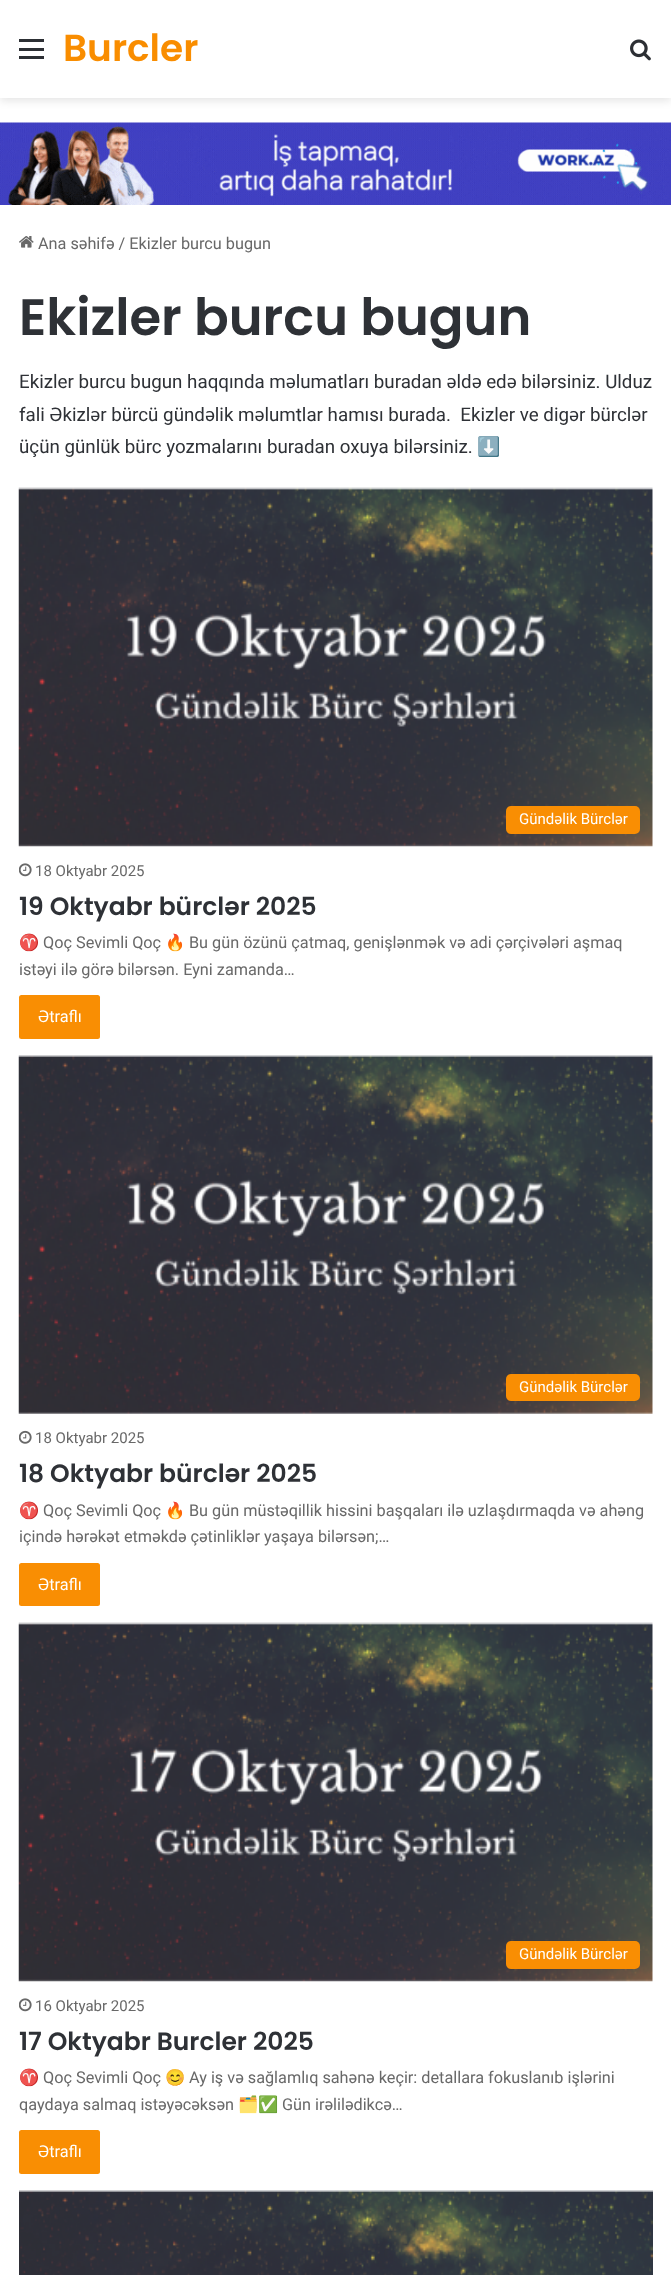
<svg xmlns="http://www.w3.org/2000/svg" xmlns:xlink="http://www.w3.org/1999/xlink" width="671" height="2275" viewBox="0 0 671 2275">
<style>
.cls-1{font:600 37.5px Poppins;fill:#f98d00}
.cls-2{font:16.25px Roboto;fill:#686868}
.cls-3{font:600 51.25px Poppins;fill:#2e3136}
.cls-4{font:18.75px Roboto;fill:#2e3136}
.cls-5{font:18.75px Noto Color Emoji;fill:#2e3136}
.cls-6{font:15px Roboto;fill:#ffffff}
.cls-7{font:15px Roboto;fill:#686868}
.cls-8{font:600 25px Poppins;fill:#2e3136}
.cls-9{font:16.25px Noto Color Emoji;fill:#686868}
.cls-10{font:16.25px Roboto;fill:#ffffff}
</style>
<rect width="100%" height="100%" fill="#ffffff"/>
<rect fill="#000000" fill-opacity="0.1" filter="blur(4.5px)" x="0" y="4" width="671" height="97"/>
<rect fill="#ffffff" x="0" y="0" width="671" height="98"/>
<rect fill="#2c2f34" x="19" y="48" width="25" height="3"/>
<rect fill="#2c2f34" x="19" y="39" width="25" height="3"/>
<rect fill="#2c2f34" x="19" y="56" width="25" height="3"/>
<image xlink:href="image0.png" x="630" y="39" width="21" height="22"/>
<image xlink:href="image1.png" x="0" y="122" width="671" height="83"/>
<image xlink:href="image2.png" x="19" y="236" width="15" height="12"/>
<image xlink:href="image3.png" x="18" y="487" width="635" height="360"/>
<rect fill="#f98e03" x="506" y="806" width="134" height="28" rx="5"/>
<image xlink:href="image4.png" x="19" y="863" width="13" height="14"/>
<rect fill="#f98e03" x="19" y="995" width="81" height="44" rx="2.5"/>
<image xlink:href="image5.png" x="18" y="1055" width="635" height="359"/>
<rect fill="#f98e03" x="506" y="1374" width="134" height="27" rx="5"/>
<image xlink:href="image6.png" x="19" y="1430" width="13" height="14"/>
<rect fill="#f98e03" x="19" y="1563" width="81" height="43" rx="2.5"/>
<image xlink:href="image7.png" x="18" y="1622" width="635" height="360"/>
<rect fill="#f98e03" x="506" y="1941" width="134" height="28" rx="5"/>
<image xlink:href="image4.png" x="19" y="1998" width="13" height="14"/>
<rect fill="#f98e03" x="19" y="2130" width="81" height="44" rx="2.5"/>
<image xlink:href="image8.png" x="19" y="2190" width="634" height="85"/>
<text class="cls-1" x="63" y="61">Burcler</text>
<text class="cls-2" x="38" y="249">Ana səhifə / Ekizler burcu bugun</text>
<text class="cls-3" x="19" y="335">Ekizler burcu bugun</text>
<text class="cls-4" xml:space="preserve"><tspan x="19" y="388">Ekizler burcu bugun haqqında məlumatları buradan əldə edə bilərsiniz. Ulduz</tspan><tspan x="19" y="421">fali Əkizlər bürcü gündəlik məlumtlar hamısı burada.  Ekizler ve digər bürclər</tspan><tspan x="19" y="453">üçün günlük bürc yozmalarını buradan oxuya bilərsiniz.</tspan></text>
<text class="cls-5" x="477" y="453">⬇️</text>
<text class="cls-6" x="519" y="824">Gündəlik Bürclər</text>
<text class="cls-7" x="35" y="876">18 Oktyabr 2025</text>
<text class="cls-8" x="19" y="915">19 Oktyabr bürclər 2025</text>
<text class="cls-9" x="19" y="948">♈</text>
<text class="cls-2" x="43" y="948">Qoç Sevimli Qoç</text>
<text class="cls-9" x="165" y="948">🔥</text>
<text class="cls-2" x="189" y="948">Bu gün özünü çatmaq, genişlənmək və adi çərçivələri aşmaq</text>
<text class="cls-2" x="19" y="975">istəyi ilə görə bilərsən. Eyni zamanda…</text>
<text class="cls-10" x="38" y="1022">Ətraflı</text>
<text class="cls-6" x="519" y="1392">Gündəlik Bürclər</text>
<text class="cls-7" x="35" y="1443">18 Oktyabr 2025</text>
<text class="cls-8" x="19" y="1482">18 Oktyabr bürclər 2025</text>
<text class="cls-9" x="19" y="1516">♈</text>
<text class="cls-2" x="43" y="1516">Qoç Sevimli Qoç</text>
<text class="cls-9" x="165" y="1516">🔥</text>
<text class="cls-2" x="189" y="1516">Bu gün müstəqillik hissini başqaları ilə uzlaşdırmaqda və ahəng</text>
<text class="cls-2" x="19" y="1542">içində hərəkət etməkdə çətinliklər yaşaya bilərsən;…</text>
<text class="cls-10" x="38" y="1590">Ətraflı</text>
<text class="cls-6" x="519" y="1959">Gündəlik Bürclər</text>
<text class="cls-7" x="35" y="2011">16 Oktyabr 2025</text>
<text class="cls-8" x="19" y="2050">17 Oktyabr Burcler 2025</text>
<text class="cls-9" x="19" y="2083">♈</text>
<text class="cls-2" x="43" y="2083">Qoç Sevimli Qoç</text>
<text class="cls-9" x="165" y="2083">😊</text>
<text class="cls-2" x="189" y="2083">Ay iş və sağlamlıq sahənə keçir: detallara fokuslanıb işlərini</text>
<text class="cls-2" x="19" y="2110">qaydaya salmaq istəyəcəksən</text>
<text class="cls-9" x="238" y="2110">🗂️✅</text>
<text class="cls-2" x="282" y="2110">Gün irəlilədikcə…</text>
<text class="cls-10" x="38" y="2157">Ətraflı</text>
</svg>
